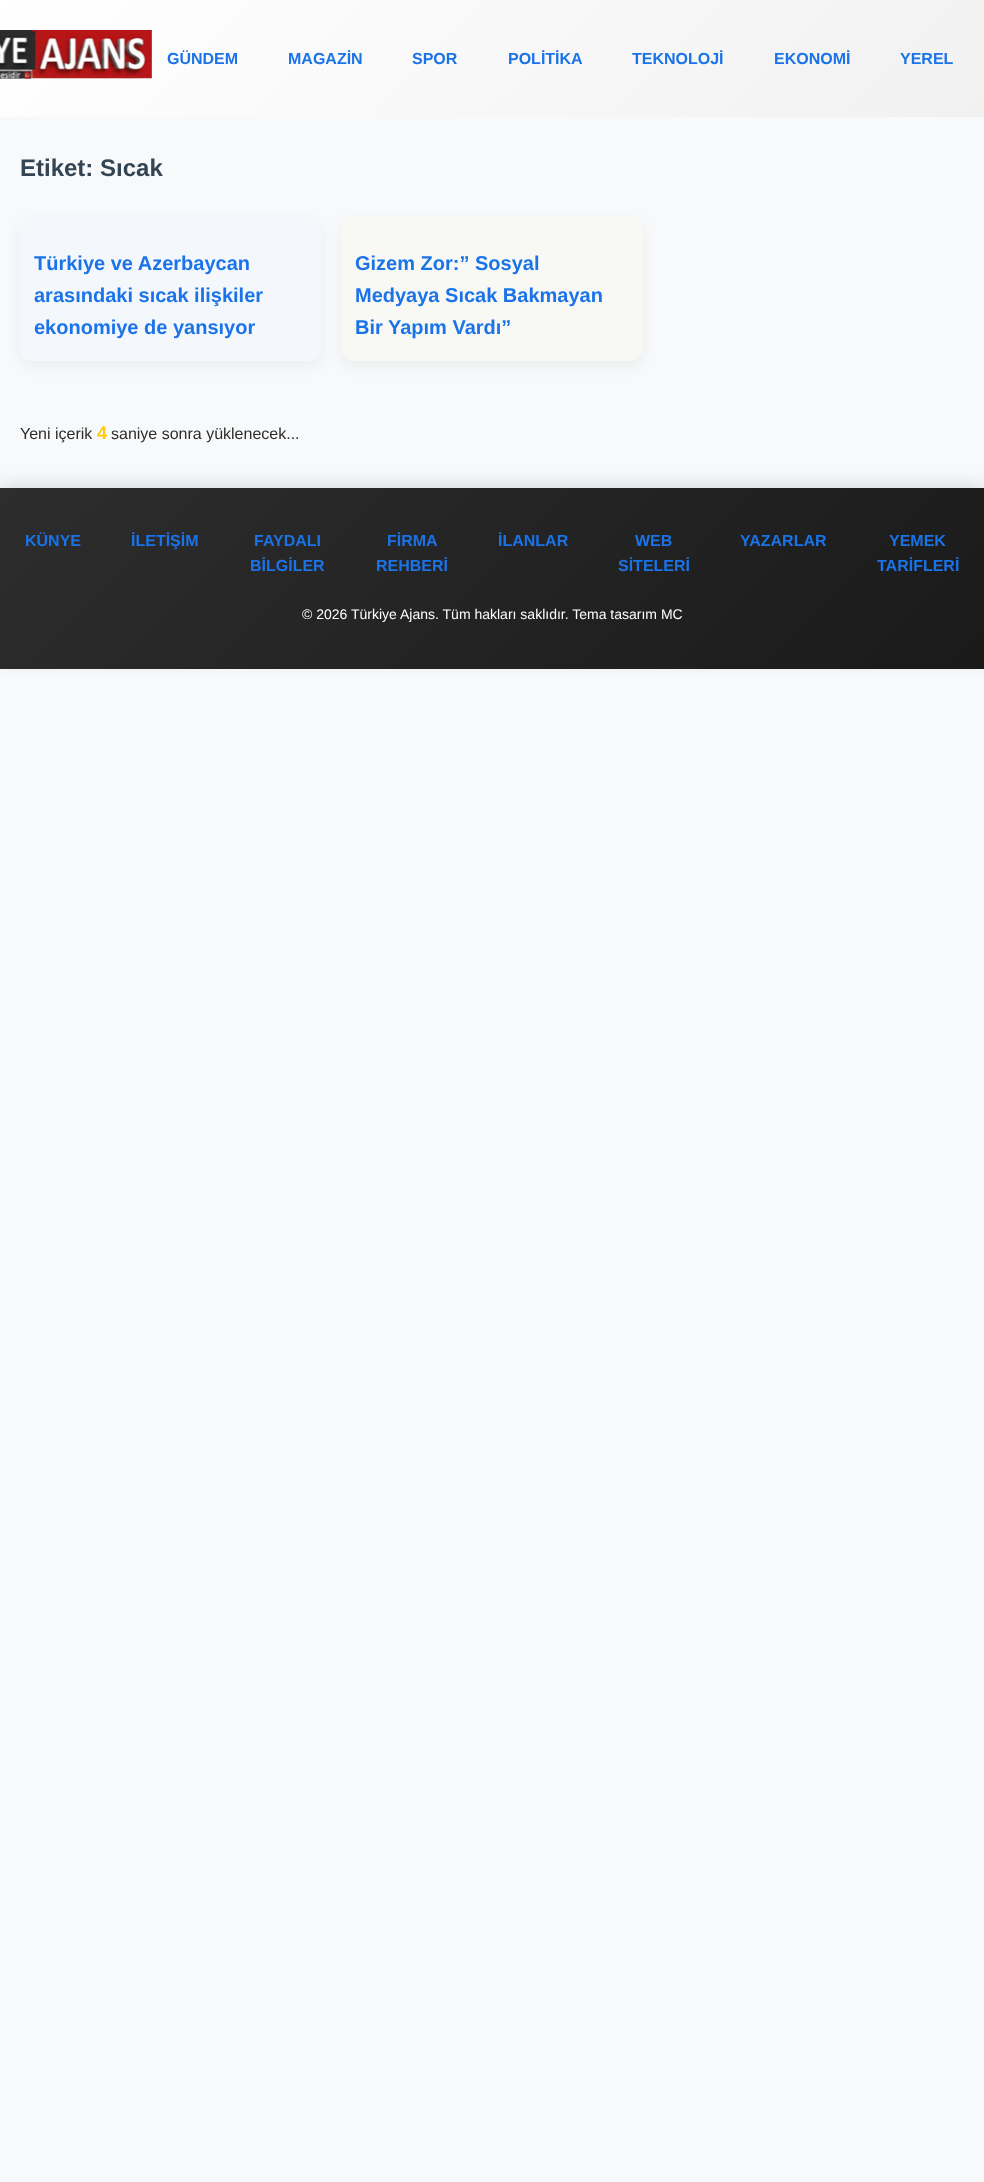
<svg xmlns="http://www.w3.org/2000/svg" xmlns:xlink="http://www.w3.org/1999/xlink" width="984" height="2182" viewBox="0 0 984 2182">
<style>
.cls-1{font:bold 16px Liberation Sans;fill:#1a73e8}
.cls-2{font:bold 24px Liberation Sans;fill:#334455}
.cls-3{font:bold 20px Liberation Sans;fill:#1a73e8}
.cls-4{font:16px Liberation Sans;fill:#2d2d2d}
.cls-5{font:bold 18px Liberation Sans;fill:#ffcc00}
.cls-6{font:14px Liberation Sans;fill:#ffffff}
</style>
<defs>
<linearGradient id="g1" gradientUnits="userSpaceOnUse" x1="217" y1="-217" x2="767" y2="334"><stop offset="0" stop-color="#ffffff"/><stop offset="1" stop-color="#f1f1f1"/></linearGradient>
<linearGradient id="g2" gradientUnits="userSpaceOnUse" x1="201" y1="287" x2="783" y2="870"><stop offset="0" stop-color="#2d2d2d"/><stop offset="1" stop-color="#1a1a1a"/></linearGradient>
</defs>
<rect width="100%" height="100%" fill="#f8f9fa"/>
<rect fill="url(#g1)" x="0" y="0" width="984" height="117"/>
<image xlink:href="image0.png" x="0" y="30" width="152" height="49"/>
<rect fill="#000000" fill-opacity="0.05" filter="blur(7.5px)" x="20" y="222" width="301" height="144" rx="13"/>
<rect fill="#f4f8fd" x="20" y="217" width="301" height="144" rx="13"/>
<rect fill="#000000" fill-opacity="0.05" filter="blur(7.5px)" x="341" y="222" width="302" height="144" rx="13"/>
<rect fill="#f8f8f4" x="341" y="217" width="302" height="144" rx="13"/>
<rect fill="#000000" fill-opacity="0.1" filter="blur(7.5px)" x="0" y="483" width="984" height="181"/>
<rect fill="url(#g2)" x="0" y="488" width="984" height="181"/>
<text class="cls-1" x="167" y="64">GÜNDEM</text>
<text class="cls-1" x="288" y="64">MAGAZİN</text>
<text class="cls-1" x="412" y="64">SPOR</text>
<text class="cls-1" x="508" y="64">POLİTİKA</text>
<text class="cls-1" x="632" y="64">TEKNOLOJİ</text>
<text class="cls-1" x="774" y="64">EKONOMİ</text>
<text class="cls-1" x="900" y="64">YEREL</text>
<text class="cls-2" x="20" y="176">Etiket: Sıcak</text>
<text class="cls-3"><tspan x="34" y="270">Türkiye ve Azerbaycan</tspan><tspan x="34" y="302">arasındaki sıcak ilişkiler</tspan><tspan x="34" y="334">ekonomiye de yansıyor</tspan></text>
<text class="cls-3"><tspan x="355" y="270">Gizem Zor:” Sosyal</tspan><tspan x="355" y="302">Medyaya Sıcak Bakmayan</tspan><tspan x="355" y="334">Bir Yapım Vardı”</tspan></text>
<text class="cls-4" x="20" y="439">Yeni içerik</text>
<text class="cls-5" x="97" y="439">4</text>
<text class="cls-4" x="111" y="439">saniye sonra yüklenecek...</text>
<text class="cls-1" x="25" y="546">KÜNYE</text>
<text class="cls-1" x="131" y="546">İLETİŞİM</text>
<text class="cls-1" x="254" y="546">FAYDALI</text>
<text class="cls-1" x="250" y="571">BİLGİLER</text>
<text class="cls-1" x="387" y="546">FİRMA</text>
<text class="cls-1" x="376" y="571">REHBERİ</text>
<text class="cls-1" x="498" y="546">İLANLAR</text>
<text class="cls-1" x="635" y="546">WEB</text>
<text class="cls-1" x="618" y="571">SİTELERİ</text>
<text class="cls-1" x="740" y="546">YAZARLAR</text>
<text class="cls-1" x="889" y="546">YEMEK</text>
<text class="cls-1" x="877" y="571">TARİFLERİ</text>
<text class="cls-6" x="302" y="619">© 2026 Türkiye Ajans. Tüm hakları saklıdır. Tema tasarım MC</text>
</svg>
